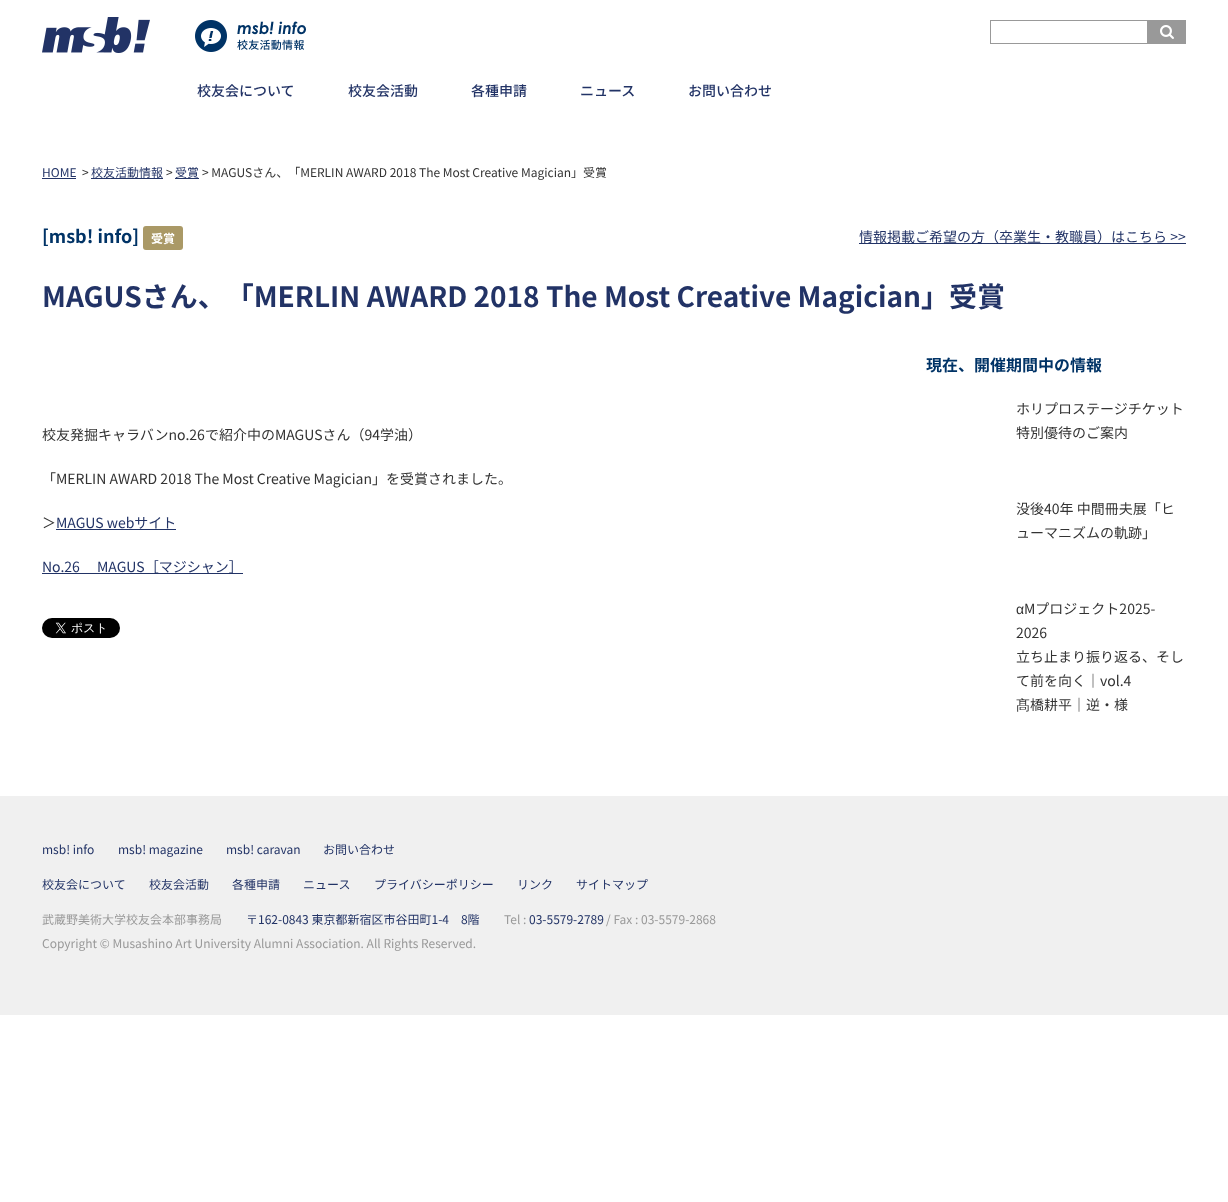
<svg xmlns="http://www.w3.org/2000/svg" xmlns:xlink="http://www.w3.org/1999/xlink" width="1228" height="1202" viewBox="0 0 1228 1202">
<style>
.cls-1{font:500 14px Noto Sans JP;fill:#223366}
.cls-2{font:12px Noto Sans JP;fill:#223366}
.cls-3{font:12px Noto Sans JP;fill:#333333}
.cls-4{font:bold 18px Noto Sans JP;fill:#003366}
.cls-5{font:bold 12px Noto Sans JP;fill:#ffffff}
.cls-6{font:14px Noto Sans JP;fill:#223366}
.cls-7{font:bold 28px Noto Sans JP;fill:#223366}
.cls-8{font:14px Noto Sans JP;fill:#333333}
.cls-9{font:bold 16px Noto Sans JP;fill:#003366}
.cls-10{font:14px Liberation Sans;fill:#333333}
.cls-11{font:500 14px WenQuanYi Zen Hei;fill:#333333}
.cls-12{font:12px Noto Sans JP;fill:#999999}
</style>
<rect width="100%" height="100%" fill="#ffffff"/>
<image xlink:href="image0.png" x="42" y="17" width="108" height="36"/>
<image xlink:href="image1.png" x="195" y="20" width="111" height="32"/>
<rect fill="none" stroke="#999999" x="990.5" y="20.5" width="157" height="23"/>
<rect fill="#999999" x="1148" y="20" width="38" height="24"/>
<image xlink:href="image2.png" x="1160" y="25" width="14" height="14"/>
<rect fill="#223366" x="42" y="178" width="34" height="1"/>
<rect fill="#223366" x="91" y="178" width="72" height="1"/>
<rect fill="#223366" x="175" y="178" width="24" height="1"/>
<rect fill="#aa9966" x="143" y="226" width="40" height="24" rx="3"/>
<rect fill="#223366" x="859" y="243" width="327" height="1"/>
<rect fill="#223366" x="56" y="529" width="120" height="1"/>
<rect fill="#223366" x="42" y="573" width="201" height="1"/>
<image xlink:href="image3.png" x="42" y="618" width="78" height="20"/>
<rect fill="#f0f0f0" x="0" y="796" width="1228" height="219"/>
<text class="cls-1" x="197" y="96">校友会について</text>
<text class="cls-1" x="348" y="96">校友会活動</text>
<text class="cls-1" x="471" y="96">各種申請</text>
<text class="cls-1" x="580" y="96">ニュース</text>
<text class="cls-1" x="688" y="96">お問い合わせ</text>
<text class="cls-2" x="42" y="177">HOME</text>
<text class="cls-3" x="82" y="177">&gt;</text>
<text class="cls-2" x="91" y="177">校友活動情報</text>
<text class="cls-3" x="166" y="177">&gt;</text>
<text class="cls-2" x="175" y="177">受賞</text>
<text class="cls-3" x="202" y="177">&gt; MAGUSさん、「MERLIN AWARD 2018 The Most Creative Magician」受賞</text>
<text class="cls-4" x="42" y="243">[msb! info]</text>
<text class="cls-5" x="151" y="243">受賞</text>
<text class="cls-6" x="859" y="242">情報掲載ご希望の方（卒業生・教職員）はこちら &gt;&gt;</text>
<text class="cls-7" x="42" y="307">MAGUSさん、「MERLIN AWARD 2018 The Most Creative Magician」受賞</text>
<text class="cls-8" x="42" y="440">校友発掘キャラバンno.26で紹介中のMAGUSさん（94学油）</text>
<text class="cls-8" x="42" y="484">「MERLIN AWARD 2018 The Most Creative Magician」を受賞されました。</text>
<text class="cls-8" x="42" y="528">＞</text>
<text class="cls-6" x="56" y="528">MAGUS webサイト</text>
<text class="cls-6" x="42" y="572">No.26　 MAGUS［マジシャン］</text>
<text class="cls-9" x="926" y="371">現在、開催期間中の情報</text>
<text class="cls-8"><tspan x="1016" y="414">ホリプロステージチケット</tspan><tspan x="1016" y="438">特別優待のご案内</tspan></text>
<text class="cls-8"><tspan x="1016" y="514">没後40年 中間冊夫展「ヒ</tspan><tspan x="1016" y="538">ューマニズムの軌跡」</tspan></text>
<text class="cls-10" x="1016" y="614">α</text>
<text class="cls-8" x="1024" y="614">Mプロジェクト2025-</text>
<text class="cls-8"><tspan x="1016" y="638">2026</tspan><tspan x="1016" y="662">立ち止まり振り返る、そし</tspan><tspan x="1016" y="686">て前を向く｜vol.4</tspan></text>
<text class="cls-11" x="1016" y="710">髙</text>
<text class="cls-8" x="1030" y="710">橋耕平｜逆・様</text>
<text class="cls-2" x="42" y="854">msb! info</text>
<text class="cls-2" x="118" y="854">msb! magazine</text>
<text class="cls-2" x="226" y="854">msb! caravan</text>
<text class="cls-2" x="323" y="854">お問い合わせ</text>
<text class="cls-2" x="42" y="889">校友会について</text>
<text class="cls-2" x="149" y="889">校友会活動</text>
<text class="cls-2" x="232" y="889">各種申請</text>
<text class="cls-2" x="303" y="889">ニュース</text>
<text class="cls-2" x="374" y="889">プライバシーポリシー</text>
<text class="cls-2" x="517" y="889">リンク</text>
<text class="cls-2" x="576" y="889">サイトマップ</text>
<text class="cls-12" x="42" y="924">武蔵野美術大学校友会本部事務局</text>
<text class="cls-2" x="246" y="924">〒162-0843 東京都新宿区市谷田町1-4　8階</text>
<text class="cls-12" x="504" y="924">Tel :</text>
<text class="cls-2" x="529" y="924">03-5579-2789</text>
<text class="cls-12" x="606" y="924">/ Fax : 03-5579-2868</text>
<text class="cls-12" x="42" y="948">Copyright © Musashino Art University Alumni Association. All Rights Reserved.</text>
</svg>
